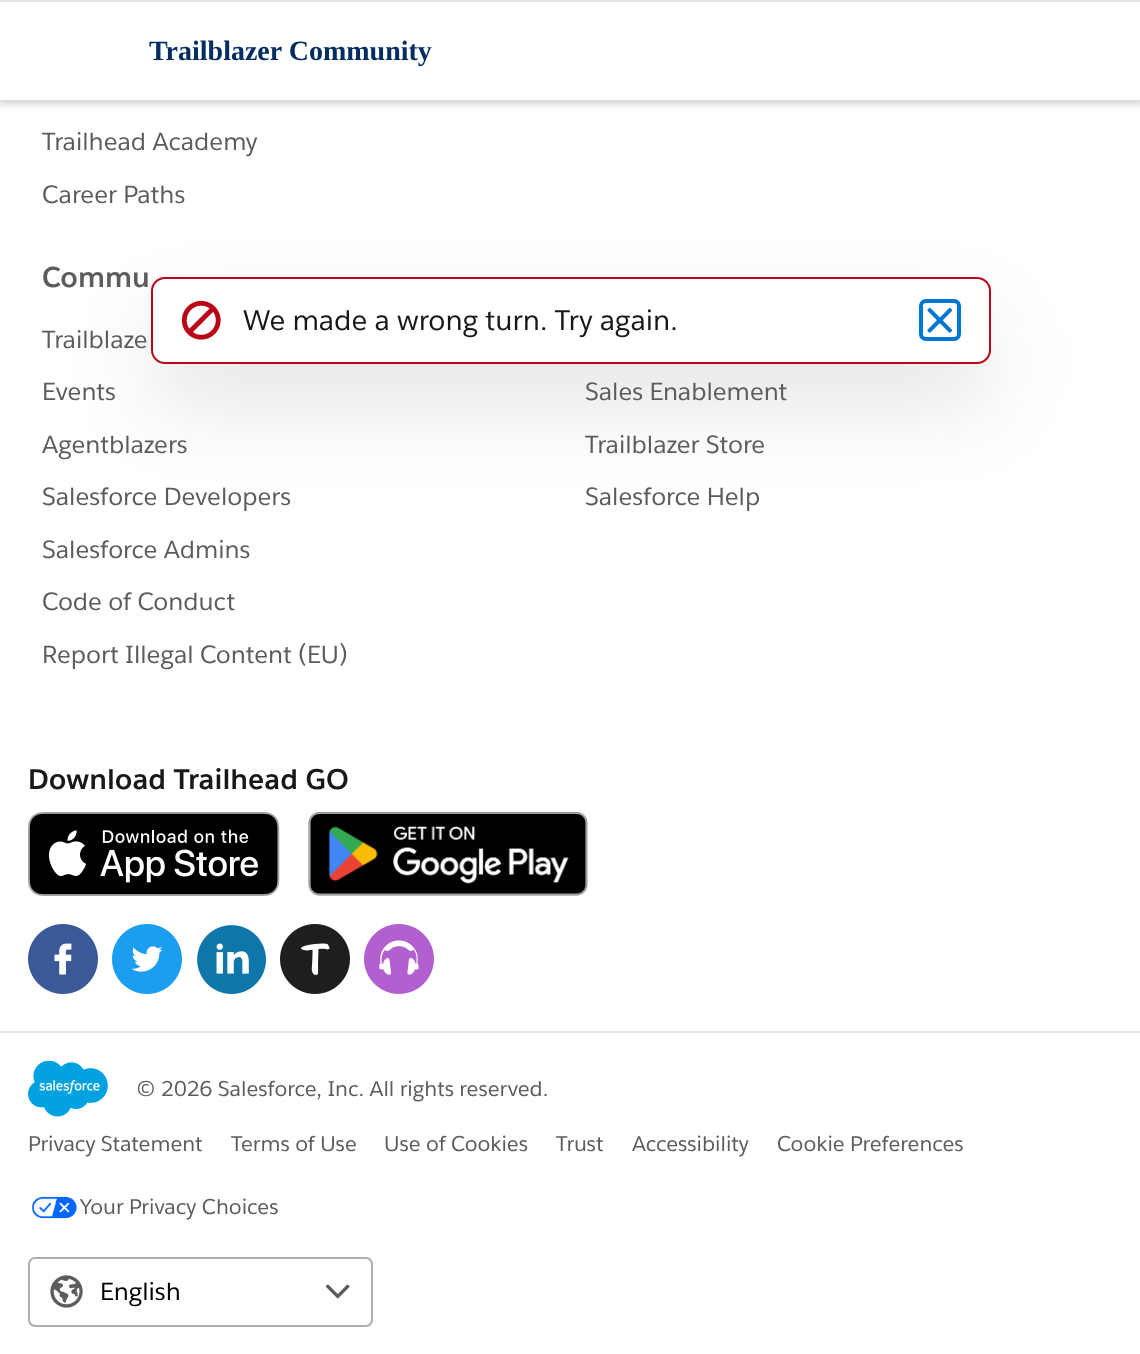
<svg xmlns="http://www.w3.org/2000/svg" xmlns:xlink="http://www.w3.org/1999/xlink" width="1140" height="1354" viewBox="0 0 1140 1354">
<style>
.cls-1{font:bold 28px Liberation Serif;fill:#032d60}
.cls-2{font:24.5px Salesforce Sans;fill:#5c5c5c}
.cls-3{font:bold 28px Salesforce Sans;fill:#5c5c5c}
.cls-4{font:bold 28px Salesforce Sans;fill:#181818}
.cls-5{font:21px Salesforce Sans;fill:#5c5c5c}
.cls-6{font:24.5px Salesforce Sans;fill:#000000}
.cls-7{font:28px Salesforce Sans;fill:#181818}
</style>
<rect width="100%" height="100%" fill="#ffffff"/>
<rect fill="#181818" fill-opacity="0.16" filter="blur(3.5px)" x="-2" y="2" width="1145" height="103"/>
<rect fill="#181818" fill-opacity="0.08" filter="blur(2px)" x="0" y="0" width="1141" height="100"/>
<rect fill="#ffffff" x="0" y="2" width="1140" height="98"/>
<rect fill="#e5e5e5" x="0" y="0" width="1140" height="2"/>
<image xlink:href="image0.png" x="28" y="812" width="252" height="84"/>
<image xlink:href="image1.png" x="308" y="812" width="280" height="84"/>
<image xlink:href="image2.png" x="28" y="924" width="70" height="70"/>
<image xlink:href="image3.png" x="112" y="924" width="70" height="70"/>
<image xlink:href="image4.png" x="197" y="925" width="69" height="69"/>
<image xlink:href="image5.png" x="280" y="924" width="70" height="70"/>
<image xlink:href="image6.png" x="364" y="924" width="70" height="70"/>
<rect fill="#e5e5e5" x="0" y="1031" width="1140" height="2"/>
<image xlink:href="image7.png" x="28" y="1061" width="80" height="56"/>
<image xlink:href="image8.png" x="31" y="1196" width="46" height="23"/>
<rect fill="none" stroke="#aeaeae" stroke-width="2" x="29" y="1258" width="343" height="68" rx="6"/>
<image xlink:href="image9.png" x="50" y="1275" width="33" height="33"/>
<image xlink:href="image10.png" x="325" y="1284" width="25" height="15"/>
<rect fill="#181818" fill-opacity="0.12" filter="blur(42px)" x="154" y="322" width="833" height="81" rx="11"/>
<rect fill="#ffffff" stroke="#ba0517" stroke-width="2" x="152" y="278" width="838" height="85" rx="13"/>
<image xlink:href="image11.png" x="181" y="300" width="40" height="40"/>
<rect fill="none" stroke="#0176d3" stroke-width="4" x="921" y="301" width="38" height="38" rx="5"/>
<image xlink:href="image12.png" x="927" y="307" width="26" height="26"/>
<text class="cls-1" x="149" y="60">Trailblazer Community</text>
<text class="cls-2" x="42" y="150">Trailhead Academy</text>
<text class="cls-2" x="42" y="203">Career Paths</text>
<text class="cls-3" x="42" y="287">Commu</text>
<text class="cls-2" x="42" y="348">Trailblaze</text>
<text class="cls-2" x="42" y="400">Events</text>
<text class="cls-2" x="42" y="453">Agentblazers</text>
<text class="cls-2" x="42" y="505">Salesforce Developers</text>
<text class="cls-2" x="42" y="558">Salesforce Admins</text>
<text class="cls-2" x="42" y="610">Code of Conduct</text>
<text class="cls-2" x="42" y="663">Report Illegal Content (EU)</text>
<text class="cls-2" x="585" y="400">Sales Enablement</text>
<text class="cls-2" x="585" y="453">Trailblazer Store</text>
<text class="cls-2" x="585" y="505">Salesforce Help</text>
<text class="cls-4" x="28" y="789">Download Trailhead GO</text>
<text class="cls-5" x="136" y="1096">© 2026 Salesforce, Inc. All rights reserved.</text>
<text class="cls-5" x="28" y="1151">Privacy Statement</text>
<text class="cls-5" x="231" y="1151">Terms of Use</text>
<text class="cls-5" x="384" y="1151">Use of Cookies</text>
<text class="cls-5" x="556" y="1151">Trust</text>
<text class="cls-5" x="632" y="1151">Accessibility</text>
<text class="cls-5" x="777" y="1151">Cookie Preferences</text>
<text class="cls-5" x="80" y="1214">Your Privacy Choices</text>
<text class="cls-6" x="100" y="1300">English</text>
<text class="cls-7" x="243" y="330">We made a wrong turn. Try again.</text>
</svg>
